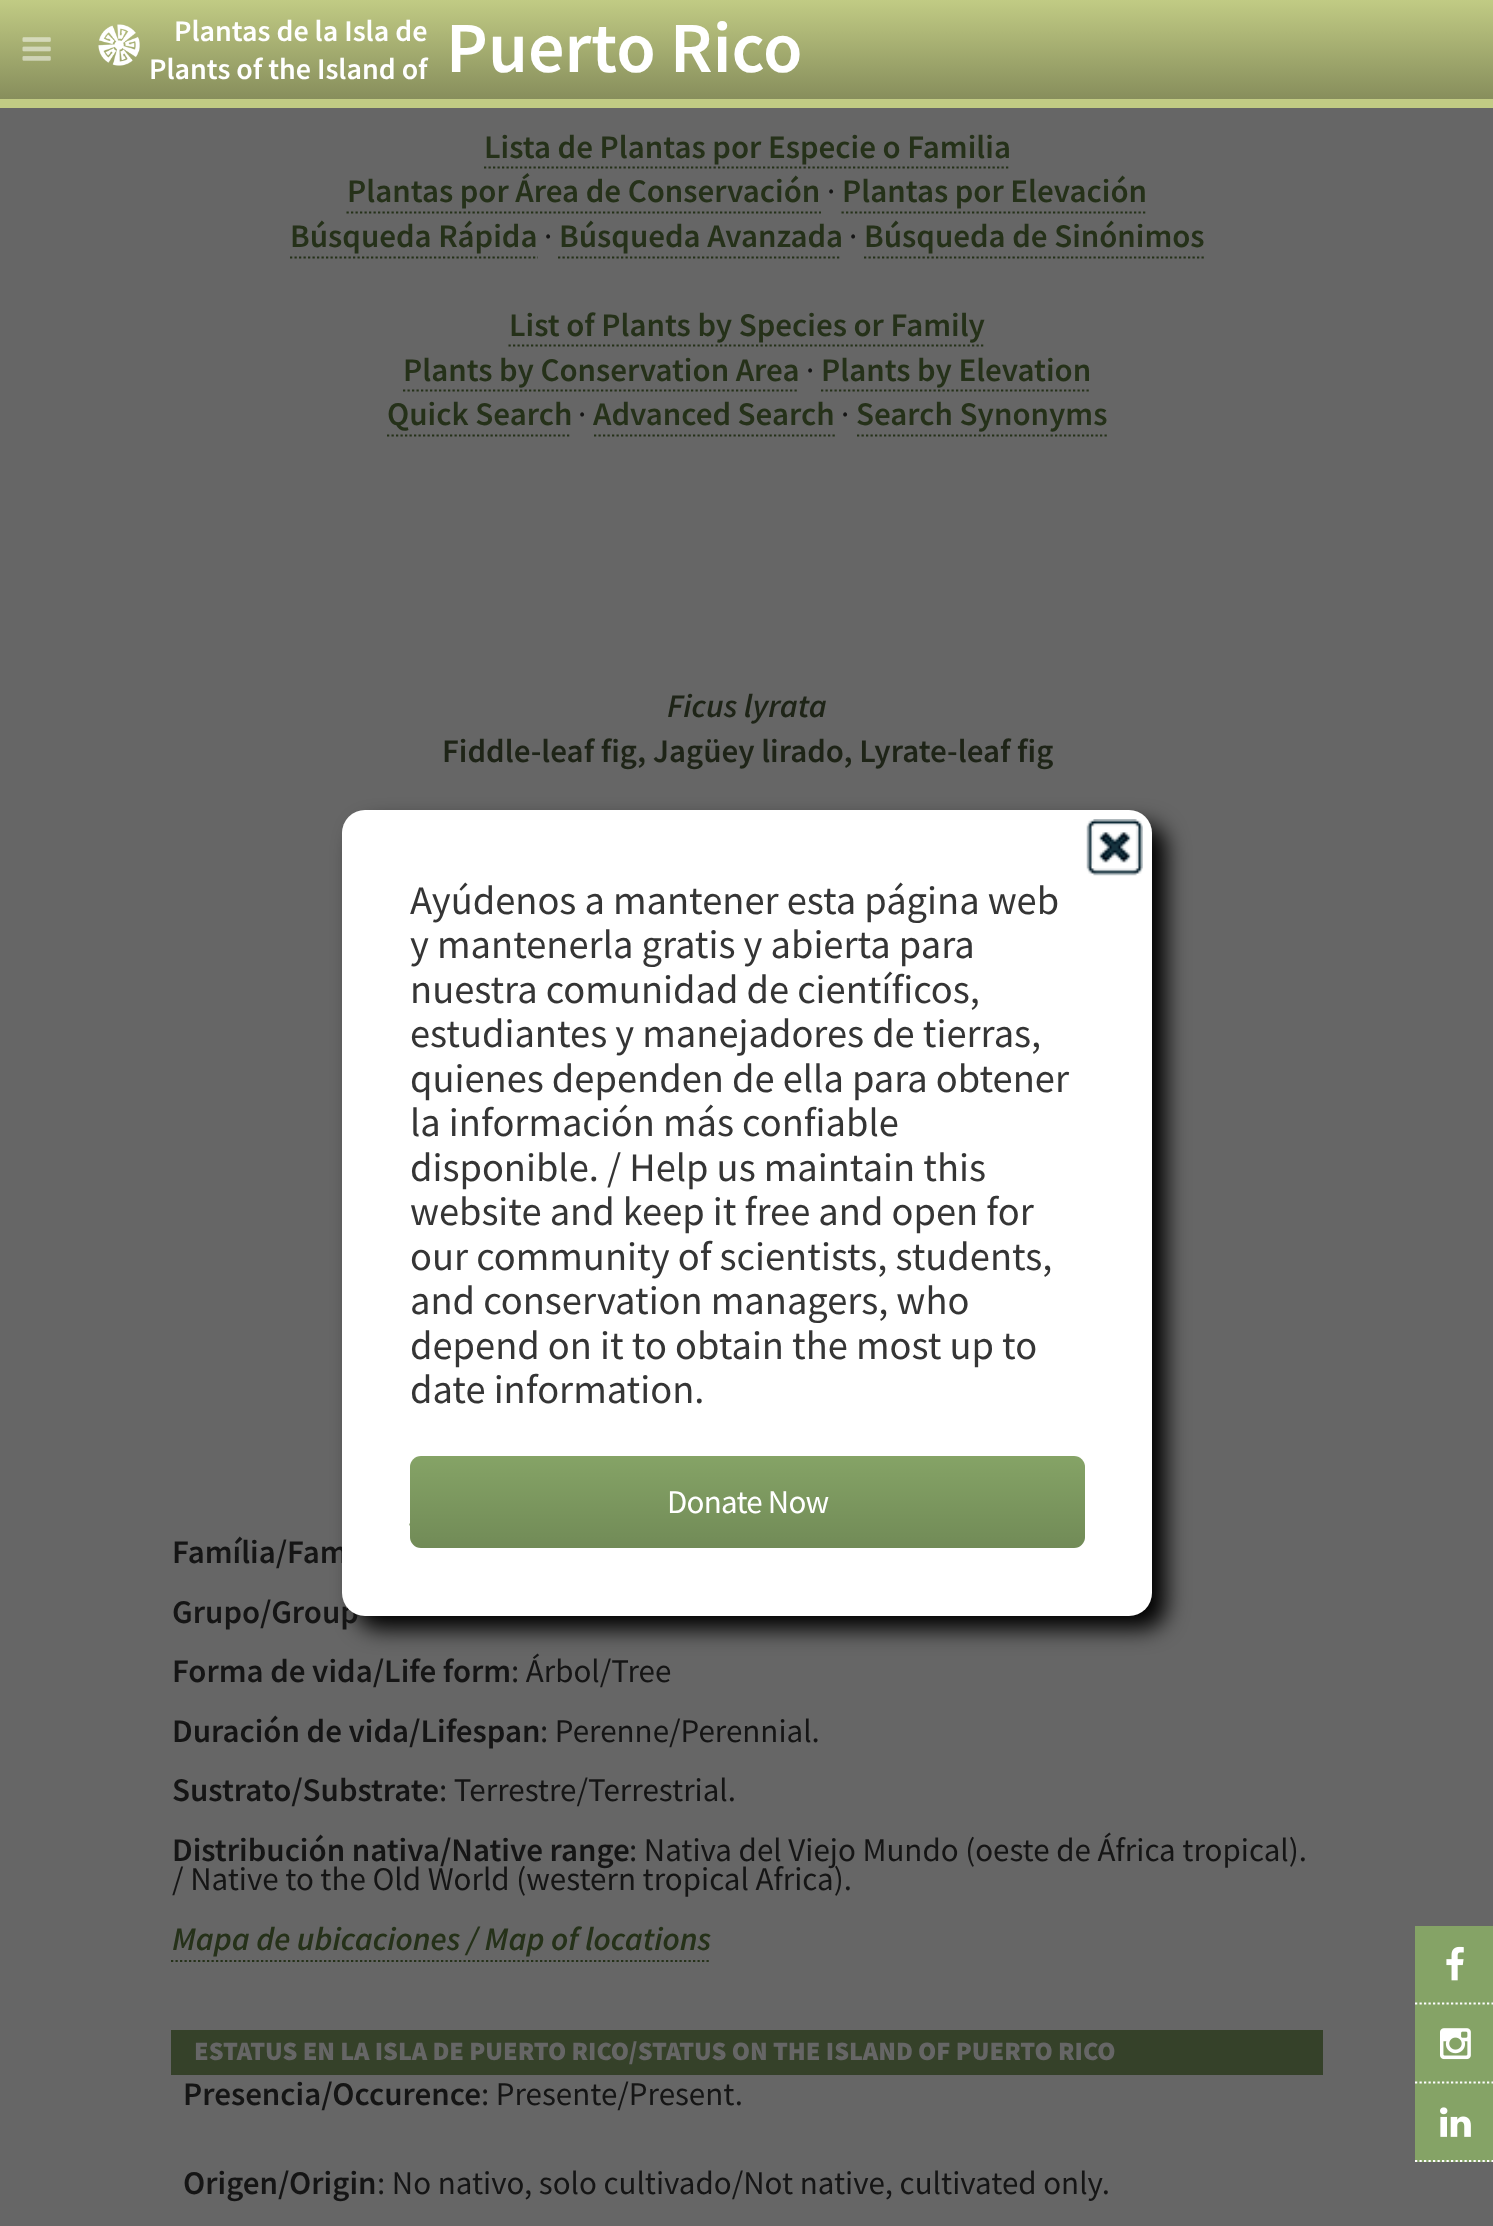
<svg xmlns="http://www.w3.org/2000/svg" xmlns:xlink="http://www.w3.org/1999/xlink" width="1493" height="2226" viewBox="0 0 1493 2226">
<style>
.cls-1{font:600 30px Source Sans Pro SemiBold;fill:#ffffff}
.cls-2{font:600 72px Source Sans Pro SemiBold;fill:#ffffff}
.cls-3{font:600 33px Source Sans Pro SemiBold;fill:#253119}
.cls-4{font:33px Source Sans Pro;fill:#151515}
.cls-5{font:italic 600 33px Source Sans Pro SemiBold;fill:#1e2417}
.cls-6{font:600 33px Source Sans Pro SemiBold;fill:#1e2417}
.cls-7{font:600 33px Source Sans Pro SemiBold;fill:#151515}
.cls-8{font:italic 600 33px Source Sans Pro SemiBold;fill:#253119}
.cls-9{font:900 26.4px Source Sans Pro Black;fill:#666666}
.cls-10{font:40.5px Source Sans Pro;fill:#353535}
.cls-11{font:33px Source Sans Pro;letter-spacing:-0.75px;fill:#ffffff}
</style>
<defs>
<linearGradient id="g1" gradientUnits="userSpaceOnUse" x1="747" y1="0" x2="747" y2="99"><stop offset="0" stop-color="#c1cb84"/><stop offset="1" stop-color="#878e5c"/></linearGradient>
<linearGradient id="g2" gradientUnits="userSpaceOnUse" x1="747" y1="1456" x2="747" y2="1548"><stop offset="0" stop-color="#000000" stop-opacity="0"/><stop offset="1" stop-color="#000000" stop-opacity="0.15"/></linearGradient>
</defs>
<rect width="100%" height="100%" fill="#666666"/>
<rect fill="#c1cb84" x="0" y="99" width="1493" height="9"/>
<rect fill="url(#g1)" x="0" y="0" width="1493" height="99"/>
<image xlink:href="image0.png" x="22" y="37" width="29" height="24"/>
<image xlink:href="image1.png" x="98" y="24" width="42" height="42"/>
<path fill="none" stroke="#253119" stroke-width="2.2" stroke-dasharray="2.25 2.25" d="M484 167.5H1010"/>
<path fill="none" stroke="#253119" stroke-width="2.2" stroke-dasharray="2.25 2.25" d="M346.5 212.5H821"/>
<path fill="none" stroke="#253119" stroke-width="2.2" stroke-dasharray="2.25 2.25" d="M841.5 212.5H1147.5"/>
<path fill="none" stroke="#253119" stroke-width="2.2" stroke-dasharray="2.25 2.25" d="M290 257.5H538"/>
<path fill="none" stroke="#253119" stroke-width="2.2" stroke-dasharray="2.25 2.25" d="M558 257.5H841.5"/>
<path fill="none" stroke="#253119" stroke-width="2.2" stroke-dasharray="2.25 2.25" d="M864 257.5H1204"/>
<path fill="none" stroke="#253119" stroke-width="2.2" stroke-dasharray="2.25 2.25" d="M508.5 345.5H985.5"/>
<path fill="none" stroke="#253119" stroke-width="2.2" stroke-dasharray="2.25 2.25" d="M403 390.5H799"/>
<path fill="none" stroke="#253119" stroke-width="2.2" stroke-dasharray="2.25 2.25" d="M821 390.5H1091"/>
<path fill="none" stroke="#253119" stroke-width="2.2" stroke-dasharray="2.25 2.25" d="M387 435.5H571.5"/>
<path fill="none" stroke="#253119" stroke-width="2.2" stroke-dasharray="2.25 2.25" d="M594 435.5H835"/>
<path fill="none" stroke="#253119" stroke-width="2.2" stroke-dasharray="2.25 2.25" d="M857 435.5H1107"/>
<path fill="none" stroke="#253119" stroke-width="2.2" stroke-dasharray="2.25 2.25" d="M171 1961H711"/>
<rect fill="#354129" x="171" y="2030" width="1152" height="45"/>
<rect fill="#000000" filter="blur(11px)" x="356" y="824" width="810" height="805" rx="23"/>
<rect fill="#85a366" x="1415" y="1926" width="78" height="236"/>
<path fill="none" stroke="#ffffff" stroke-width="2.2" stroke-dasharray="2.25 2.25" d="M1415 2003.5H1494"/>
<image xlink:href="image3.png" x="1446" y="1946" width="18" height="35"/>
<path fill="none" stroke="#ffffff" stroke-width="2.2" stroke-dasharray="2.25 2.25" d="M1415 2082.5H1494"/>
<image xlink:href="image4.png" x="1440" y="2028" width="31" height="32"/>
<path fill="none" stroke="#ffffff" stroke-width="2.2" stroke-dasharray="2.25 2.25" d="M1415 2161H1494"/>
<image xlink:href="image5.png" x="1440" y="2107" width="31" height="30"/>
<text class="cls-1" x="174" y="41">Plantas de la Isla de</text>
<text class="cls-1" x="149" y="79">Plants of the Island of</text>
<text class="cls-2" x="446" y="72">Puerto Rico</text>
<text class="cls-3" x="484" y="158">Lista de Plantas por Especie o Familia</text>
<text class="cls-3" x="347" y="202">Plantas por Área de Conservación</text>
<text class="cls-4" x="827" y="202">·</text>
<text class="cls-3" x="842" y="202">Plantas por Elevación</text>
<text class="cls-3" x="290" y="247">Búsqueda Rápida</text>
<text class="cls-4" x="544" y="247">·</text>
<text class="cls-3" x="559" y="247">Búsqueda Avanzada</text>
<text class="cls-4" x="849" y="247">·</text>
<text class="cls-3" x="864" y="247">Búsqueda de Sinónimos</text>
<text class="cls-3" x="509" y="336">List of Plants by Species or Family</text>
<text class="cls-3" x="403" y="381">Plants by Conservation Area</text>
<text class="cls-4" x="806" y="381">·</text>
<text class="cls-3" x="821" y="381">Plants by Elevation</text>
<text class="cls-3" x="387" y="425">Quick Search</text>
<text class="cls-4" x="578" y="425">·</text>
<text class="cls-3" x="593" y="425">Advanced Search</text>
<text class="cls-4" x="841" y="425">·</text>
<text class="cls-3" x="856" y="425">Search Synonyms</text>
<text class="cls-5" x="667" y="717">Ficus lyrata</text>
<text class="cls-6" x="442" y="762">Fiddle-leaf fig, Jagüey lirado, Lyrate-leaf fig</text>
<text class="cls-7"><tspan x="172" y="1563">Família/Fam</tspan><tspan x="172" y="1623">Grupo/Group</tspan><tspan x="172" y="1682">Forma de vida/Life form</tspan></text>
<text class="cls-4" x="511" y="1682">: Árbol/Tree</text>
<text class="cls-7" x="172" y="1742">Duración de vida/Lifespan</text>
<text class="cls-4" x="540" y="1742">: Perenne/Perennial.</text>
<text class="cls-7" x="172" y="1801">Sustrato/Substrate</text>
<text class="cls-4" x="439" y="1801">: Terrestre/Terrestrial.</text>
<text class="cls-7" x="172" y="1861">Distribución nativa/Native range</text>
<text class="cls-4" x="629" y="1861">: Nativa del Viejo Mundo (oeste de África tropical).</text>
<text class="cls-4" x="172" y="1890">/ Native to the Old World (western tropical Africa).</text>
<text class="cls-8" x="172" y="1950">Mapa de ubicaciones / Map of locations</text>
<text class="cls-9" x="194" y="2060">ESTATUS EN LA ISLA DE PUERTO RICO/STATUS ON THE ISLAND OF PUERTO RICO</text>
<text class="cls-7" x="183" y="2105">Presencia/Occurence</text>
<text class="cls-4" x="481" y="2105">: Presente/Present.</text>
<text class="cls-7" x="183" y="2194">Origen/Origin</text>
<text class="cls-4" x="377" y="2194">: No nativo, solo cultivado/Not native, cultivated only.</text>
<rect fill="#ffffff" x="342" y="810" width="810" height="806" rx="23"/>
<image xlink:href="image2.png" x="1086" y="819" width="57" height="57"/>
<text class="cls-10"><tspan x="410" y="914">Ayúdenos a mantener esta página web</tspan><tspan x="410" y="958">y mantenerla gratis y abierta para</tspan><tspan x="410" y="1003">nuestra comunidad de científicos,</tspan><tspan x="410" y="1047">estudiantes y manejadores de tierras,</tspan><tspan x="410" y="1092">quienes dependen de ella para obtener</tspan><tspan x="410" y="1136">la información más confiable</tspan><tspan x="410" y="1181">disponible. / Help us maintain this</tspan><tspan x="410" y="1225">website and keep it free and open for</tspan><tspan x="410" y="1270">our community of scientists, students,</tspan><tspan x="410" y="1314">and conservation managers, who</tspan><tspan x="410" y="1359">depend on it to obtain the most up to</tspan><tspan x="410" y="1403">date information.</tspan></text>
<path fill="none" stroke="#5d7b3e" stroke-width="2.2" stroke-dasharray="2.25 2.25" d="M409.5 1524.5H1084.5"/>
<rect fill="#85a366" x="410" y="1456" width="675" height="92" rx="11"/>
<rect fill="url(#g2)" x="410" y="1456" width="675" height="92" rx="11"/>
<text class="cls-11" x="667" y="1513">Donate Now</text>
</svg>
